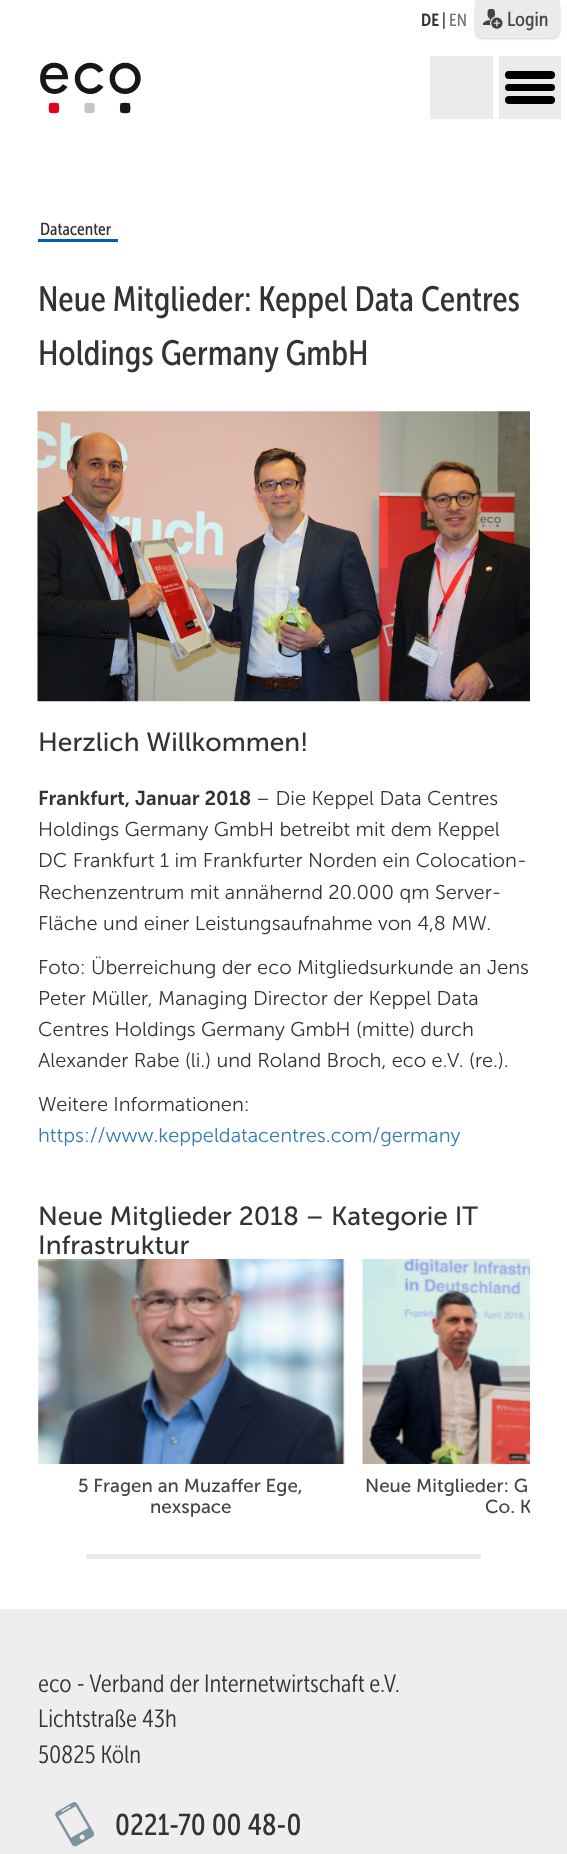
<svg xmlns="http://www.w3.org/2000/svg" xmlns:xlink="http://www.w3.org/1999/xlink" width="567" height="1854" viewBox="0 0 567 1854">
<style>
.cls-1{font:600 17.5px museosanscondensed;fill:#333333}
.cls-2{font:17.5px museosanscondensed;fill:#333333}
.cls-3{font:17.5px museosanscondensed;fill:#757575}
.cls-4{font:20px museosanscondensed;fill:#444444}
.cls-5{font:35px museosanscondensed;fill:#333333}
.cls-6{font:26.25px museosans;fill:#333333}
.cls-7{font:600 20px museosans;fill:#333333}
.cls-8{font:300 20px museosans;fill:#333333}
.cls-9{font:300 20px museosans;fill:#337ab7}
.cls-10{font:18.75px museosans;fill:#444444}
.cls-11{font:300 25px museosanscondensed;fill:#333333}
.cls-12{font:30px museosanscondensed;fill:#333333}
</style>
<defs>
<clipPath id="clip1"><rect x="38" y="1259" width="492" height="264"/></clipPath>
</defs>
<rect width="100%" height="100%" fill="#ffffff"/>
<rect fill="#d2d1d1" filter="blur(1px)" x="475" y="1" width="85" height="38" rx="8"/>
<path fill="#ecebeb" stroke="#ecebeb" d="M475.5 .5H559.5V30C559.5 34 556 37.5 552 37.5H483C479 37.5 475.5 34 475.5 30Z"/>
<image xlink:href="image0.png" x="483" y="9" width="20" height="20"/>
<image xlink:href="image1.png" x="40" y="62" width="101" height="52"/>
<rect fill="#ecebeb" x="430" y="56" width="63" height="63"/>
<rect fill="#ecebeb" x="499" y="56" width="62" height="63"/>
<rect fill="#000000" x="505" y="84" width="50" height="7" rx="3.5"/>
<rect fill="#000000" x="505" y="71" width="50" height="8" rx="4"/>
<rect fill="#000000" x="505" y="96" width="50" height="8" rx="4"/>
<rect fill="#005cb9" x="38" y="239" width="80" height="3"/>
<image xlink:href="image2.png" x="37" y="411" width="493" height="291"/>
<image xlink:href="image3.png" x="38" y="1259" width="307" height="205"/>
<image xlink:href="image4.png" x="362" y="1259" width="168" height="205"/>
<rect fill="#ebebeb" x="86" y="1554" width="395" height="5"/>
<rect fill="#eeeeee" x="0" y="1609" width="567" height="245"/>
<image xlink:href="image5.png" x="55" y="1802" width="40" height="45"/>
<text class="cls-1" x="421" y="26">DE</text>
<text class="cls-2" x="442" y="26">|</text>
<text class="cls-3" x="449" y="26">EN</text>
<text class="cls-4" x="507" y="26">Login</text>
<text class="cls-2" x="40" y="235">Datacenter</text>
<text class="cls-5"><tspan x="38" y="311">Neue Mitglieder: Keppel Data Centres</tspan><tspan x="38" y="365">Holdings Germany GmbH</tspan></text>
<text class="cls-6" x="38" y="751">Herzlich Willkommen!</text>
<text class="cls-7" x="38" y="805">Frankfurt, Januar 2018</text>
<text class="cls-8" x="256" y="805">– Die Keppel Data Centres</text>
<text class="cls-8"><tspan x="38" y="836">Holdings Germany GmbH betreibt mit dem Keppel</tspan><tspan x="38" y="867">DC Frankfurt 1 im Frankfurter Norden ein Colocation-</tspan><tspan x="38" y="899">Rechenzentrum mit annähernd 20.000 qm Server-</tspan><tspan x="38" y="930">Fläche und einer Leistungsaufnahme von 4,8 MW.</tspan></text>
<text class="cls-8"><tspan x="38" y="974">Foto: Überreichung der eco Mitgliedsurkunde an Jens</tspan><tspan x="38" y="1005">Peter Müller, Managing Director der Keppel Data</tspan><tspan x="38" y="1036">Centres Holdings Germany GmbH (mitte) durch</tspan><tspan x="38" y="1067">Alexander Rabe (li.) und Roland Broch, eco e.V. (re.).</tspan></text>
<text class="cls-8" x="38" y="1111">Weitere Informationen:</text>
<text class="cls-9" x="38" y="1142">https://www.keppeldatacentres.com/germany</text>
<text class="cls-6"><tspan x="38" y="1225">Neue Mitglieder 2018 – Kategorie IT</tspan><tspan x="38" y="1254">Infrastruktur</tspan></text>
<text class="cls-10" x="78" y="1492">5 Fragen an Muzaffer Ege,</text>
<text class="cls-10" x="150" y="1513">nexspace</text>
<text class="cls-10" x="365" y="1492">Neue Mitglieder: G</text>
<g clip-path="url(#clip1)">
<text class="cls-10" x="485" y="1513">Co. K</text>
</g>
<text class="cls-11"><tspan x="38" y="1692">eco - Verband der Internetwirtschaft e.V.</tspan><tspan x="38" y="1727">Lichtstraße 43h</tspan><tspan x="38" y="1763">50825 Köln</tspan></text>
<text class="cls-12" x="115" y="1835">0221-70 00 48-0</text>
</svg>
